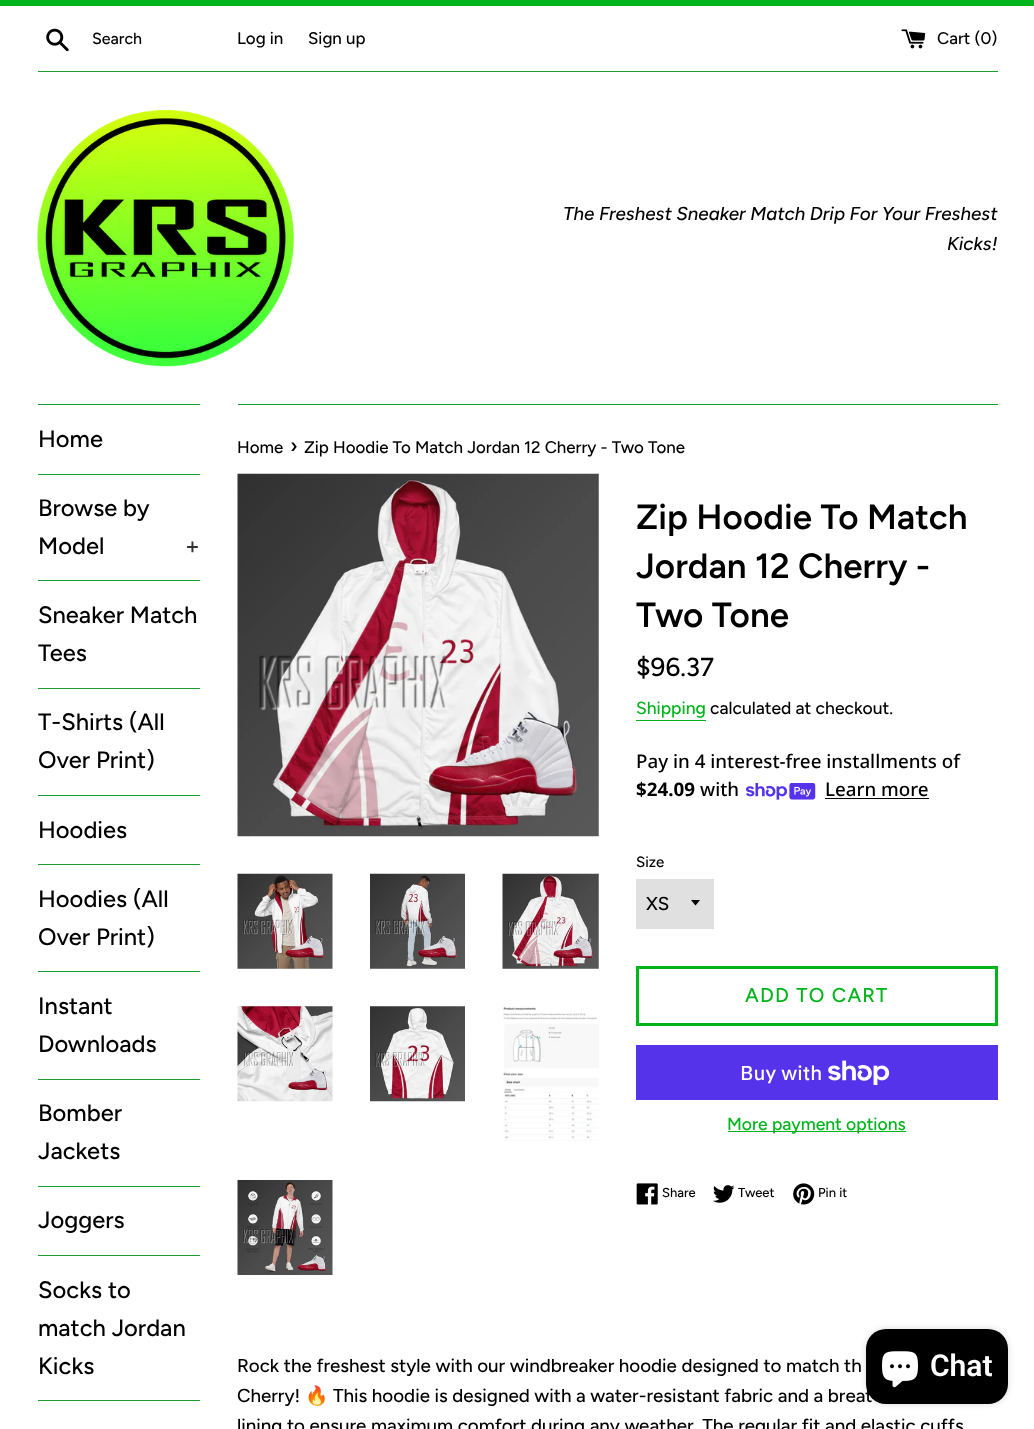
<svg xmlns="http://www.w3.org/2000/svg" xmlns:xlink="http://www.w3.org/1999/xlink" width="1034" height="1429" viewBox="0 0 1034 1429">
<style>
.cls-1{font:500 16px Figtree;fill:#000000}
.cls-2{font:500 16.9px Figtree;fill:#000000}
.cls-3{font:italic 500 18.75px Figtree;fill:#000000}
.cls-4{font:500 23.75px Figtree;fill:#000000}
.cls-5{font:500 23.75px Figtree;fill:#333333}
.cls-6{font:500 21px Figtree;fill:#000000}
.cls-7{font:600 35px Figtree;fill:#000000}
.cls-8{font:500 26px Figtree;fill:#000000}
.cls-9{font:500 17.5px Figtree;fill:#00b41b}
.cls-10{font:500 17.5px Figtree;fill:#000000}
.cls-11{font:500 18.75px Noto Sans;fill:#000000}
.cls-12{font:bold 18.75px Noto Sans;fill:#000000}
.cls-13{font:500 15px Figtree;fill:#000000}
.cls-14{font:500 18.75px Figtree;fill:#000000}
.cls-15{font:500 20px Figtree;letter-spacing:1.25px;fill:#00b41b}
.cls-16{font:500 20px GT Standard;fill:#ffffff}
.cls-17{font:500 13px Figtree;fill:#000000}
.cls-18{font:18.75px Noto Color Emoji;fill:#000000}
.cls-19{font:600 30px Roboto;fill:#ffffff}
</style>
<rect width="100%" height="100%" fill="#ffffff"/>
<rect fill="#00b41b" x="0" y="0" width="1034" height="6"/>
<image xlink:href="image0.png" x="46" y="28" width="23" height="24"/>
<image xlink:href="image1.png" x="901" y="29" width="25" height="20"/>
<rect fill="#19a12e" x="38" y="71" width="960" height="1"/>
<image xlink:href="image2.png" x="37" y="110" width="257" height="257"/>
<rect fill="#19a12e" x="38" y="404" width="162" height="1"/>
<rect fill="#19a12e" x="38" y="474" width="162" height="1"/>
<rect fill="#19a12e" x="38" y="580" width="162" height="1"/>
<rect fill="#19a12e" x="38" y="688" width="162" height="1"/>
<rect fill="#19a12e" x="38" y="795" width="162" height="1"/>
<rect fill="#19a12e" x="38" y="864" width="162" height="1"/>
<rect fill="#19a12e" x="38" y="971" width="162" height="1"/>
<rect fill="#19a12e" x="38" y="1079" width="162" height="1"/>
<rect fill="#19a12e" x="38" y="1186" width="162" height="1"/>
<rect fill="#19a12e" x="38" y="1255" width="162" height="1"/>
<rect fill="#19a12e" x="38" y="1400" width="162" height="1"/>
<rect fill="#19a12e" x="238" y="404" width="760" height="1"/>
<image xlink:href="image3.png" x="237" y="473" width="362" height="364"/>
<image xlink:href="image4.png" x="237" y="873" width="96" height="96"/>
<image xlink:href="image5.png" x="370" y="873" width="95" height="96"/>
<image xlink:href="image6.png" x="502" y="873" width="97" height="96"/>
<image xlink:href="image7.png" x="237" y="1006" width="96" height="96"/>
<image xlink:href="image8.png" x="370" y="1006" width="95" height="96"/>
<image xlink:href="image9.png" x="502" y="1006" width="97" height="135"/>
<image xlink:href="image10.png" x="237" y="1180" width="96" height="95"/>
<rect fill="#00b41b" x="636" y="720" width="70" height="1"/>
<image xlink:href="image11.png" x="746" y="783" width="70" height="17"/>
<rect fill="#000000" x="825" y="798" width="104" height="1"/>
<rect fill="#e0e0e0" x="636" y="879" width="78" height="50"/>
<path fill="#000000" d="M691 900L695.5 905.5L700 900Z"/>
<rect fill="none" stroke="#00b41b" stroke-width="3" x="637.5" y="967.5" width="359" height="57"/>
<rect fill="#5433eb" x="636" y="1045" width="362" height="55"/>
<image xlink:href="image12.png" x="828" y="1060" width="62" height="25"/>
<rect fill="#00b41b" x="728" y="1131" width="178" height="1"/>
<image xlink:href="image13.png" x="636" y="1183" width="22" height="22"/>
<image xlink:href="image14.png" x="713" y="1185" width="22" height="18"/>
<image xlink:href="image15.png" x="793" y="1183" width="22" height="22"/>
<rect fill="#000000" fill-opacity="0.15" filter="blur(3px)" x="866" y="1329" width="142" height="75" rx="20"/>
<rect fill="#000000" x="866" y="1329" width="142" height="75" rx="20"/>
<image xlink:href="image16.png" x="882" y="1351" width="36" height="37"/>
<text class="cls-1" x="92" y="44">Search</text>
<text class="cls-2" x="237" y="44">Log in</text>
<text class="cls-2" x="308" y="44">Sign up</text>
<text class="cls-2" x="937" y="44">Cart (0)</text>
<text class="cls-3" x="563" y="220">The Freshest Sneaker Match Drip For Your Freshest</text>
<text class="cls-3" x="947" y="250">Kicks!</text>
<text class="cls-4" x="38" y="447">Home</text>
<text class="cls-4"><tspan x="38" y="516">Browse by</tspan><tspan x="38" y="554">Model</tspan></text>
<text class="cls-5" x="185" y="554">+</text>
<text class="cls-4"><tspan x="38" y="623">Sneaker Match</tspan><tspan x="38" y="661">Tees</tspan></text>
<text class="cls-4"><tspan x="38" y="730">T-Shirts (All</tspan><tspan x="38" y="768">Over Print)</tspan></text>
<text class="cls-4" x="38" y="838">Hoodies</text>
<text class="cls-4"><tspan x="38" y="907">Hoodies (All</tspan><tspan x="38" y="945">Over Print)</tspan></text>
<text class="cls-4"><tspan x="38" y="1014">Instant</tspan><tspan x="38" y="1052">Downloads</tspan></text>
<text class="cls-4"><tspan x="38" y="1121">Bomber</tspan><tspan x="38" y="1159">Jackets</tspan></text>
<text class="cls-4" x="38" y="1228">Joggers</text>
<text class="cls-4"><tspan x="38" y="1298">Socks to</tspan><tspan x="38" y="1336">match Jordan</tspan><tspan x="38" y="1374">Kicks</tspan></text>
<text class="cls-2" x="237" y="453">Home</text>
<text class="cls-6" x="290" y="453">›</text>
<text class="cls-2" x="304" y="453">Zip Hoodie To Match Jordan 12 Cherry - Two Tone</text>
<text class="cls-7"><tspan x="636" y="529">Zip Hoodie To Match</tspan><tspan x="636" y="578">Jordan 12 Cherry -</tspan><tspan x="636" y="627">Two Tone</tspan></text>
<text class="cls-8" x="636" y="676">$96.37</text>
<text class="cls-9" x="636" y="714">Shipping</text>
<text class="cls-10" x="710" y="714">calculated at checkout.</text>
<text class="cls-11" x="636" y="768">Pay in 4 interest-free installments of</text>
<text class="cls-12" x="636" y="796">$24.09</text>
<text class="cls-11" x="700" y="796">with</text>
<text class="cls-11" x="825" y="796">Learn more</text>
<text class="cls-13" x="636" y="867">Size</text>
<text class="cls-14" x="646" y="910">XS</text>
<text class="cls-15" x="745" y="1002">ADD TO CART</text>
<text class="cls-16" x="740" y="1080">Buy with</text>
<text class="cls-9" x="727" y="1130">More payment options</text>
<text class="cls-17" x="662" y="1197">Share</text>
<text class="cls-17" x="738" y="1197">Tweet</text>
<text class="cls-17" x="818" y="1197">Pin it</text>
<text class="cls-14"><tspan x="237" y="1372">Rock the freshest style with our windbreaker hoodie designed to match th</tspan><tspan x="237" y="1402">Cherry!</tspan></text>
<text class="cls-18" x="305" y="1402">🔥</text>
<text class="cls-14" x="333" y="1402">This hoodie is designed with a water-resistant fabric and a breat</text>
<text class="cls-14" x="237" y="1432">lining to ensure maximum comfort during any weather. The regular fit and elastic cuffs</text>
<text class="cls-19" x="930" y="1376">Chat</text>
</svg>
